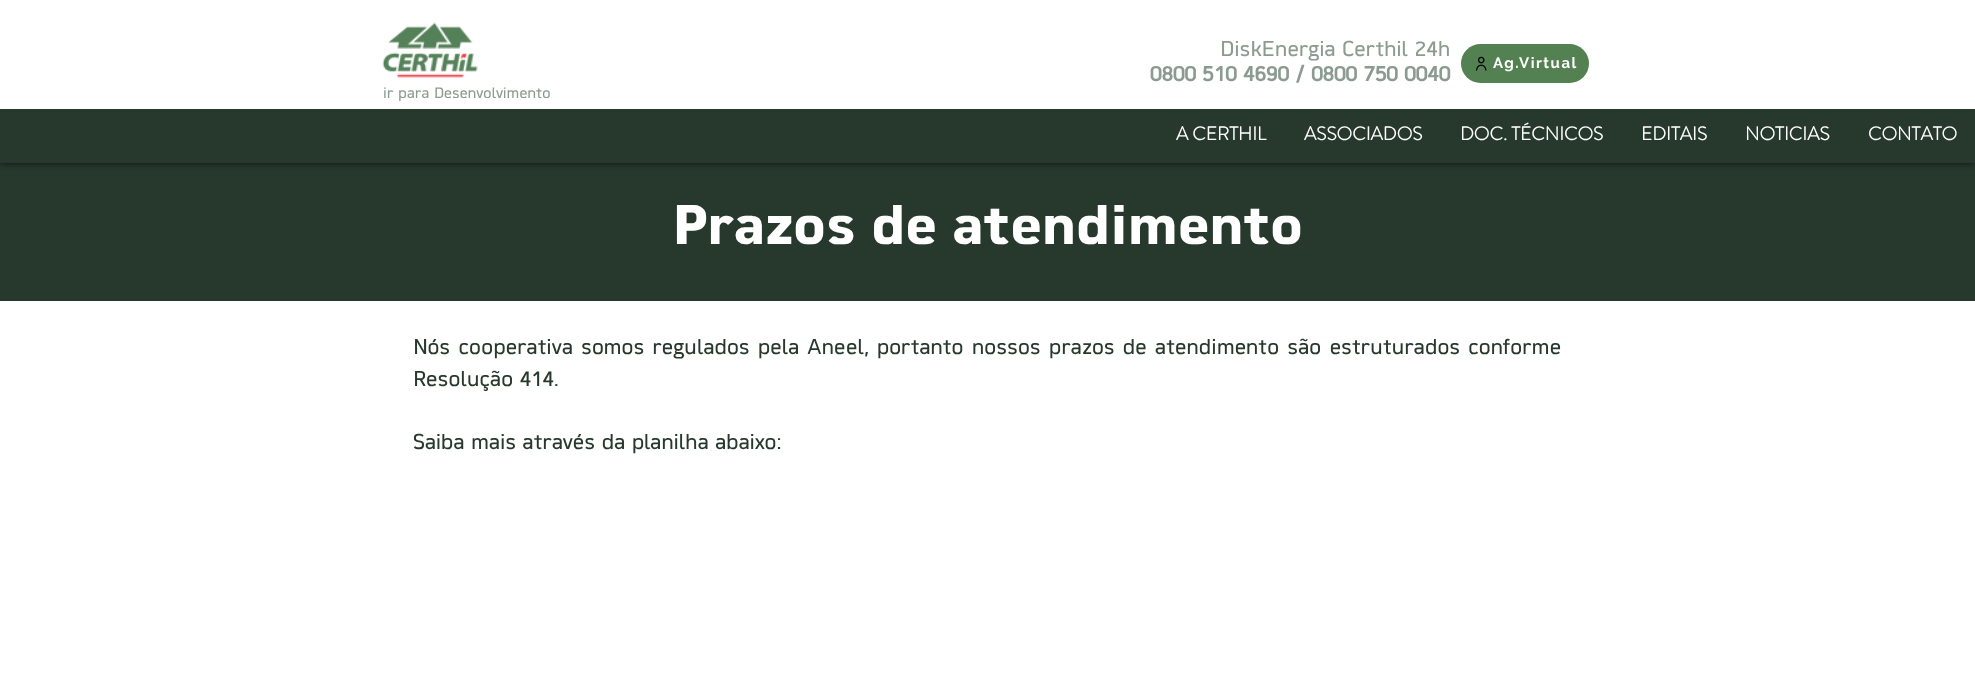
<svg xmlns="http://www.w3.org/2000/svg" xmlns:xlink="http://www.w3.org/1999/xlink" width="1975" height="689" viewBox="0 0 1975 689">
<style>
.cls-1{font:21.25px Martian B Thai;fill:#8c9b91}
.cls-2{font:bold 21.25px 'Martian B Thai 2';fill:#8c9b91}
.cls-3{font:bold 15px Raleway;letter-spacing:1.5px;fill:#ffffff}
.cls-4{font:15px Martian B Thai;fill:#8c9b91}
.cls-5{font:bold 18.75px 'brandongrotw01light';fill:#ffffff}
.cls-6{font:bold 55px Martian B Thai;fill:#ffffff}
.cls-7{font:21.25px Martian B Thai;fill:#27382d}
</style>
<rect width="100%" height="100%" fill="#27382d"/>
<rect fill="#000000" fill-opacity="0.7" filter="blur(3px)" x="0" y="0" width="1975" height="163"/>
<rect fill="#27382d" x="0" y="109" width="1975" height="54"/>
<rect fill="#ffffff" x="0" y="0" width="1975" height="109"/>
<image xlink:href="image0.png" x="382" y="22" width="96" height="56"/>
<rect fill="#548151" x="1461" y="44" width="128" height="39" rx="19.5"/>
<image xlink:href="image1.png" x="1476" y="56" width="11" height="15"/>
<rect fill="#ffffff" x="0" y="301" width="1975" height="388"/>
<text class="cls-1" x="1220" y="56">DiskEnergia Certhil 24h</text>
<text class="cls-2" x="1150" y="81">0800 510 4690 / 0800 750 0040</text>
<text class="cls-3" x="1493" y="68">Ag.Virtual</text>
<text class="cls-4" x="383" y="98">ir para Desenvolvimento</text>
<text class="cls-5" x="1176" y="140">A CERTHIL</text>
<text class="cls-5" x="1304" y="140">ASSOCIADOS</text>
<text class="cls-5" x="1460" y="140">DOC. TÉCNICOS</text>
<text class="cls-5" x="1641" y="140">EDITAIS</text>
<text class="cls-5" x="1745" y="140">NOTICIAS</text>
<text class="cls-5" x="1868" y="140">CONTATO</text>
<text class="cls-6" x="672" y="244">Prazos de atendimento</text>
<text class="cls-7"><tspan x="413" y="354" word-spacing="1.6">Nós cooperativa somos regulados pela Aneel, portanto nossos prazos de atendimento são estruturados conforme</tspan><tspan x="413" y="386">Resolução 414.</tspan></text>
<text class="cls-7" x="413" y="449">Saiba mais através da planilha abaixo:</text>
</svg>
